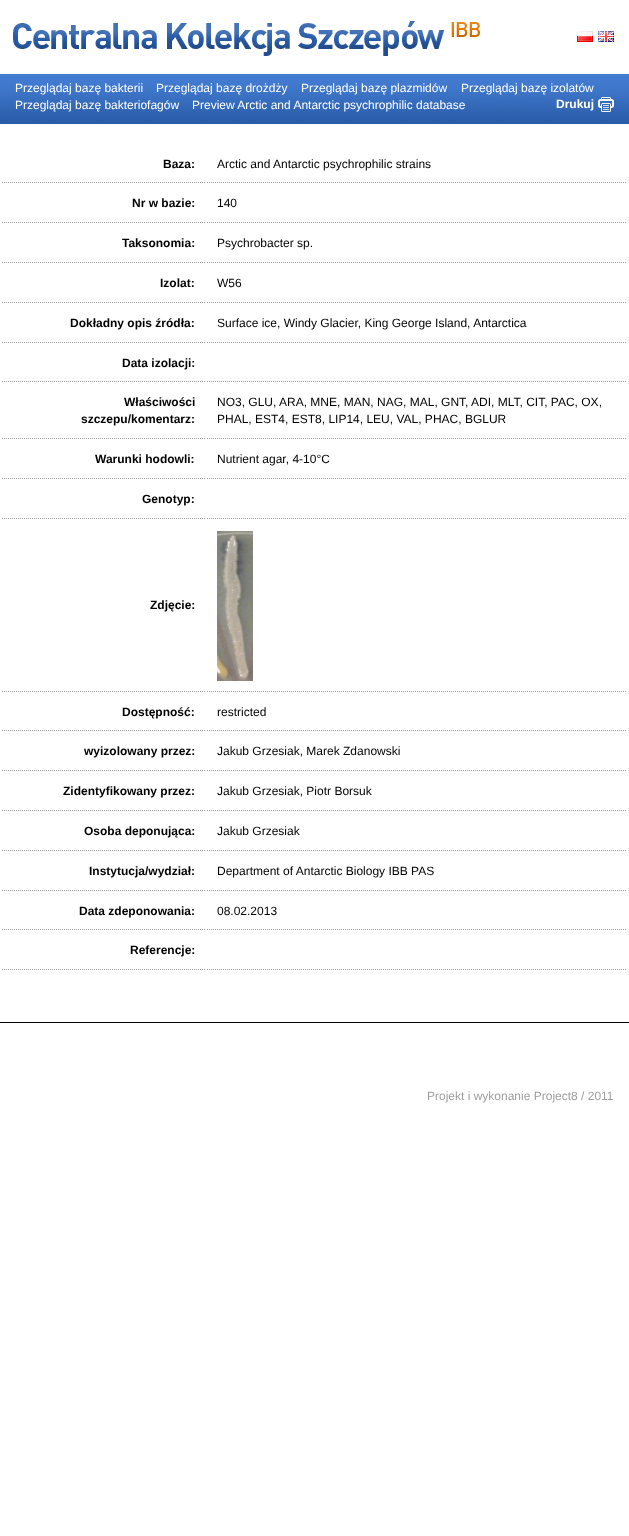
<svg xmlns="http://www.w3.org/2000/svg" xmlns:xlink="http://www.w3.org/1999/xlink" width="629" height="1536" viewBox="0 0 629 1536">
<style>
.cls-1{font:12px Liberation Sans;fill:#ffffff}
.cls-2{font:bold 12px Liberation Sans;fill:#ffffff}
.cls-3{font:bold 12px Liberation Sans;fill:#000000}
.cls-4{font:12px Liberation Sans;fill:#000000}
.cls-5{font:12px Liberation Sans;fill:#9e9e9e}
</style>
<rect width="100%" height="100%" fill="#ffffff"/>
<image xlink:href="image0.png" x="13" y="21" width="467" height="35"/>
<image xlink:href="image1.png" x="577" y="31" width="16" height="11"/>
<image xlink:href="image2.png" x="598" y="31" width="16" height="11"/>
<image xlink:href="image3.png" x="0" y="74" width="629" height="50"/>
<image xlink:href="image4.png" x="598" y="97" width="16" height="15"/>
<rect fill="#000000" x="0" y="1022" width="629" height="1"/>
<path fill="none" stroke="#9e9e9e" stroke-dasharray="1 1" d="M2 182.5H205"/>
<path fill="none" stroke="#9e9e9e" stroke-dasharray="1 1" d="M207 182.5H627"/>
<path fill="none" stroke="#9e9e9e" stroke-dasharray="1 1" d="M2 222.5H205"/>
<path fill="none" stroke="#9e9e9e" stroke-dasharray="1 1" d="M207 222.5H627"/>
<path fill="none" stroke="#9e9e9e" stroke-dasharray="1 1" d="M2 262.5H205"/>
<path fill="none" stroke="#9e9e9e" stroke-dasharray="1 1" d="M207 262.5H627"/>
<path fill="none" stroke="#9e9e9e" stroke-dasharray="1 1" d="M2 302.5H205"/>
<path fill="none" stroke="#9e9e9e" stroke-dasharray="1 1" d="M207 302.5H627"/>
<path fill="none" stroke="#9e9e9e" stroke-dasharray="1 1" d="M2 342.5H205"/>
<path fill="none" stroke="#9e9e9e" stroke-dasharray="1 1" d="M207 342.5H627"/>
<path fill="none" stroke="#9e9e9e" stroke-dasharray="1 1" d="M2 381.5H205"/>
<path fill="none" stroke="#9e9e9e" stroke-dasharray="1 1" d="M207 381.5H627"/>
<path fill="none" stroke="#9e9e9e" stroke-dasharray="1 1" d="M2 438.5H205"/>
<path fill="none" stroke="#9e9e9e" stroke-dasharray="1 1" d="M207 438.5H627"/>
<path fill="none" stroke="#9e9e9e" stroke-dasharray="1 1" d="M2 478.5H205"/>
<path fill="none" stroke="#9e9e9e" stroke-dasharray="1 1" d="M207 478.5H627"/>
<path fill="none" stroke="#9e9e9e" stroke-dasharray="1 1" d="M2 518.5H205"/>
<path fill="none" stroke="#9e9e9e" stroke-dasharray="1 1" d="M207 518.5H627"/>
<path fill="none" stroke="#9e9e9e" stroke-dasharray="1 1" d="M2 691.5H205"/>
<path fill="none" stroke="#9e9e9e" stroke-dasharray="1 1" d="M207 691.5H627"/>
<image xlink:href="image5.png" x="217" y="531" width="36" height="150"/>
<path fill="none" stroke="#9e9e9e" stroke-dasharray="1 1" d="M2 730.5H205"/>
<path fill="none" stroke="#9e9e9e" stroke-dasharray="1 1" d="M207 730.5H627"/>
<path fill="none" stroke="#9e9e9e" stroke-dasharray="1 1" d="M2 770.5H205"/>
<path fill="none" stroke="#9e9e9e" stroke-dasharray="1 1" d="M207 770.5H627"/>
<path fill="none" stroke="#9e9e9e" stroke-dasharray="1 1" d="M2 810.5H205"/>
<path fill="none" stroke="#9e9e9e" stroke-dasharray="1 1" d="M207 810.5H627"/>
<path fill="none" stroke="#9e9e9e" stroke-dasharray="1 1" d="M2 850.5H205"/>
<path fill="none" stroke="#9e9e9e" stroke-dasharray="1 1" d="M207 850.5H627"/>
<path fill="none" stroke="#9e9e9e" stroke-dasharray="1 1" d="M2 890.5H205"/>
<path fill="none" stroke="#9e9e9e" stroke-dasharray="1 1" d="M207 890.5H627"/>
<path fill="none" stroke="#9e9e9e" stroke-dasharray="1 1" d="M2 929.5H205"/>
<path fill="none" stroke="#9e9e9e" stroke-dasharray="1 1" d="M207 929.5H627"/>
<path fill="none" stroke="#9e9e9e" stroke-dasharray="1 1" d="M2 969.5H205"/>
<path fill="none" stroke="#9e9e9e" stroke-dasharray="1 1" d="M207 969.5H627"/>
<text class="cls-1" x="15" y="92">Przeglądaj bazę bakterii</text>
<text class="cls-1" x="156" y="92">Przeglądaj bazę drożdży</text>
<text class="cls-1" x="301" y="92">Przeglądaj bazę plazmidów</text>
<text class="cls-1" x="461" y="92">Przeglądaj bazę izolatów</text>
<text class="cls-1" x="15" y="109">Przeglądaj bazę bakteriofagów</text>
<text class="cls-1" x="192" y="109">Preview Arctic and Antarctic psychrophilic database</text>
<text class="cls-2" x="556" y="108">Drukuj</text>
<text class="cls-3" x="163" y="168">Baza:</text>
<text class="cls-4" x="217" y="168">Arctic and Antarctic psychrophilic strains</text>
<text class="cls-3" x="132" y="207">Nr w bazie:</text>
<text class="cls-4" x="217" y="207">140</text>
<text class="cls-3" x="122" y="247">Taksonomia:</text>
<text class="cls-4" x="217" y="247">Psychrobacter sp.</text>
<text class="cls-3" x="160" y="287">Izolat:</text>
<text class="cls-4" x="217" y="287">W56</text>
<text class="cls-3" x="70" y="327">Dokładny opis źródła:</text>
<text class="cls-4" x="217" y="327">Surface ice, Windy Glacier, King George Island, Antarctica</text>
<text class="cls-3" x="122" y="367">Data izolacji:</text>
<text class="cls-3" x="124" y="406">Właściwości</text>
<text class="cls-3" x="81" y="423">szczepu/komentarz:</text>
<text class="cls-4"><tspan x="217" y="406">NO3, GLU, ARA, MNE, MAN, NAG, MAL, GNT, ADI, MLT, CIT, PAC, OX,</tspan><tspan x="217" y="423">PHAL, EST4, EST8, LIP14, LEU, VAL, PHAC, BGLUR</tspan></text>
<text class="cls-3" x="95" y="463">Warunki hodowli:</text>
<text class="cls-4" x="217" y="463">Nutrient agar, 4-10°C</text>
<text class="cls-3" x="142" y="503">Genotyp:</text>
<text class="cls-3" x="150" y="609">Zdjęcie:</text>
<text class="cls-3" x="122" y="716">Dostępność:</text>
<text class="cls-4" x="217" y="716">restricted</text>
<text class="cls-3" x="84" y="755">wyizolowany przez:</text>
<text class="cls-4" x="217" y="755">Jakub Grzesiak, Marek Zdanowski</text>
<text class="cls-3" x="63" y="795">Zidentyfikowany przez:</text>
<text class="cls-4" x="217" y="795">Jakub Grzesiak, Piotr Borsuk</text>
<text class="cls-3" x="84" y="835">Osoba deponująca:</text>
<text class="cls-4" x="217" y="835">Jakub Grzesiak</text>
<text class="cls-3" x="89" y="875">Instytucja/wydział:</text>
<text class="cls-4" x="217" y="875">Department of Antarctic Biology IBB PAS</text>
<text class="cls-3" x="79" y="915">Data zdeponowania:</text>
<text class="cls-4" x="217" y="915">08.02.2013</text>
<text class="cls-3" x="130" y="954">Referencje:</text>
<text class="cls-5" x="427" y="1100">Projekt i wykonanie Project8 / 2011</text>
</svg>
